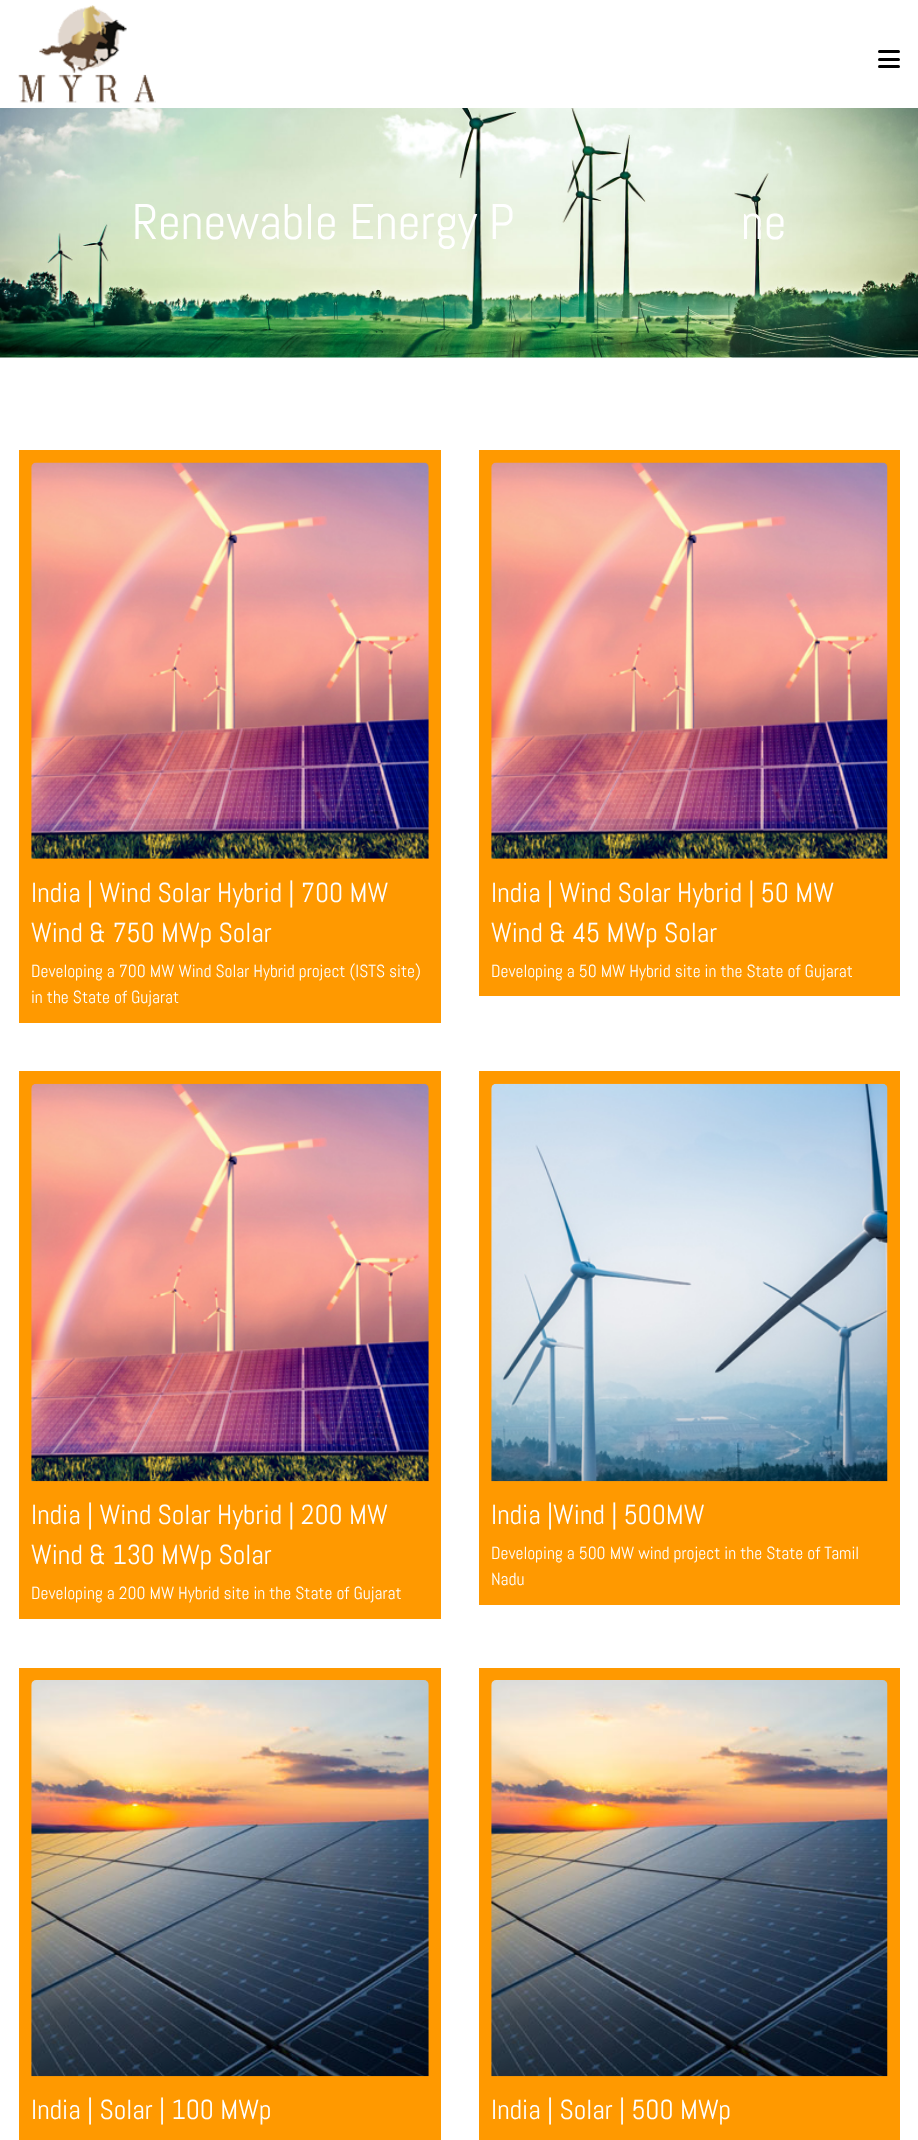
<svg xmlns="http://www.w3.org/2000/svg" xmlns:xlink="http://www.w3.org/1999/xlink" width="918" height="2140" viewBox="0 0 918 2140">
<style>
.cls-1{font:50px Abel;fill:#ffffff}
.cls-2{font:27.5px Abel;fill:#ffffff}
.cls-3{font:17.5px Abel;fill:#ffffff}
</style>
<rect width="100%" height="100%" fill="#ffffff"/>
<image xlink:href="image0.png" x="18" y="5" width="138" height="98"/>
<rect fill="#000000" x="878" y="50" width="22" height="3" rx="1.5"/>
<rect fill="#000000" x="878" y="58" width="22" height="3" rx="1.5"/>
<rect fill="#000000" x="878" y="65" width="22" height="3" rx="1.5"/>
<image xlink:href="image1.png" x="0" y="108" width="918" height="250"/>
<rect fill="#ff9900" x="19" y="450" width="422" height="573"/>
<image xlink:href="image2.png" x="31" y="462" width="398" height="397"/>
<rect fill="#ff9900" x="479" y="450" width="421" height="546"/>
<image xlink:href="image3.png" x="491" y="462" width="397" height="397"/>
<rect fill="#ff9900" x="19" y="1071" width="422" height="548"/>
<image xlink:href="image4.png" x="31" y="1083" width="398" height="399"/>
<rect fill="#ff9900" x="479" y="1071" width="421" height="534"/>
<image xlink:href="image5.png" x="491" y="1083" width="397" height="399"/>
<rect fill="#ff9900" x="19" y="1668" width="422" height="472"/>
<image xlink:href="image6.png" x="31" y="1680" width="398" height="397"/>
<rect fill="#ff9900" x="479" y="1668" width="421" height="472"/>
<image xlink:href="image7.png" x="491" y="1680" width="397" height="397"/>
<text class="cls-1" x="132" y="239">Renewable Energy P</text>
<text class="cls-1" x="741" y="239">ne</text>
<text class="cls-2"><tspan x="31" y="902">India | Wind Solar Hybrid | 700 MW</tspan><tspan x="31" y="942">Wind &amp; 750 MWp Solar</tspan></text>
<text class="cls-3"><tspan x="31" y="977">Developing a 700 MW Wind Solar Hybrid project (ISTS site)</tspan><tspan x="31" y="1003">in the State of Gujarat</tspan></text>
<text class="cls-2"><tspan x="491" y="902">India | Wind Solar Hybrid | 50 MW</tspan><tspan x="491" y="942">Wind &amp; 45 MWp Solar</tspan></text>
<text class="cls-3" x="491" y="977">Developing a 50 MW Hybrid site in the State of Gujarat</text>
<text class="cls-2"><tspan x="31" y="1524">India | Wind Solar Hybrid | 200 MW</tspan><tspan x="31" y="1564">Wind &amp; 130 MWp Solar</tspan></text>
<text class="cls-3" x="31" y="1599">Developing a 200 MW Hybrid site in the State of Gujarat</text>
<text class="cls-2" x="491" y="1524">India |Wind | 500MW</text>
<text class="cls-3"><tspan x="491" y="1559">Developing a 500 MW wind project in the State of Tamil</tspan><tspan x="491" y="1585">Nadu</tspan></text>
<text class="cls-2" x="31" y="2119">India | Solar | 100 MWp</text>
<text class="cls-2" x="491" y="2119">India | Solar | 500 MWp</text>
</svg>
